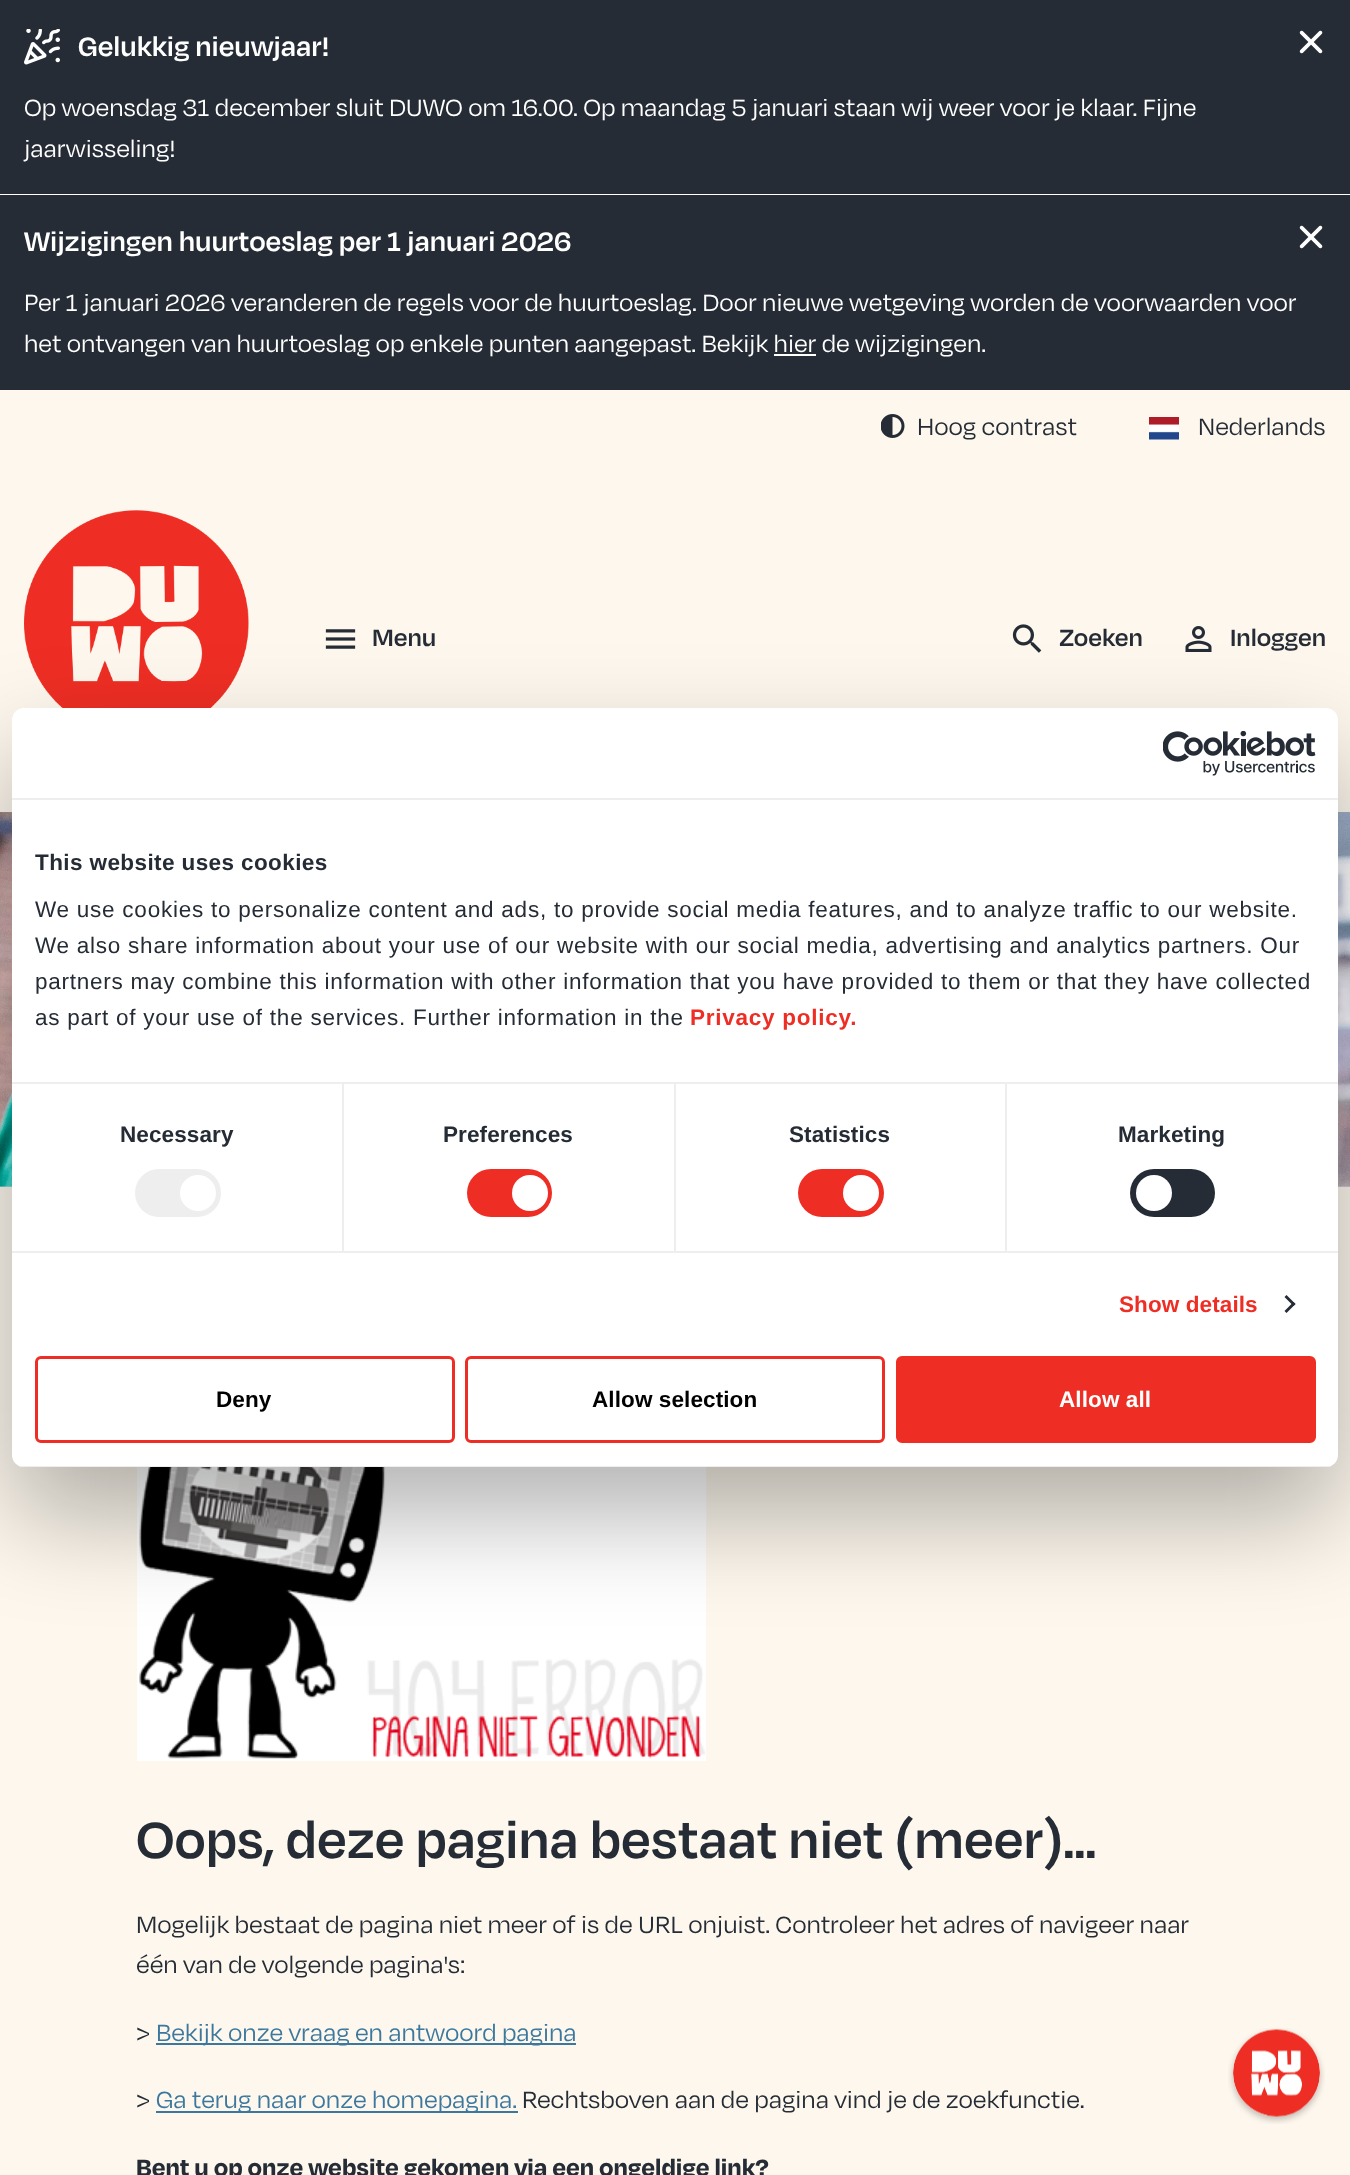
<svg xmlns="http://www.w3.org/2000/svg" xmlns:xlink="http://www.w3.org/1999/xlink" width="1350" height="2175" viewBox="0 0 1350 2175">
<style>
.cls-1{font:600 30.75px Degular;fill:#ffffff}
.cls-2{font:27px Degular;fill:#ffffff}
.cls-3{font:27px Degular;fill:#252c35}
.cls-4{font:600 27px Degular;fill:#252c35}
.cls-5{font:600 58.5px Degular;fill:#252c35}
.cls-6{font:27px Degular;fill:#3c789e}
.cls-7{font:bold 27px Degular;fill:#252c35}
.cls-8{font:bold 22.5px Liberation Sans;letter-spacing:0.4px;fill:#252c35}
.cls-9{font:22.5px Liberation Sans;letter-spacing:0.75px;fill:#252c35}
.cls-10{font:bold 22.5px Liberation Sans;letter-spacing:0.75px;fill:#ee2e24}
.cls-11{font:bold 22.5px Liberation Sans;letter-spacing:0.1px;fill:#252c35}
.cls-12{font:bold 22.5px Liberation Sans;letter-spacing:0.1px;fill:#ee2e24}
.cls-13{font:bold 22.5px Liberation Sans;letter-spacing:0.1px;fill:#000000}
.cls-14{font:bold 22.5px Liberation Sans;letter-spacing:0.1px;fill:#ffffff}
</style>
<defs>
<clipPath id="clip1"><rect x="12" y="708" width="1326" height="759" rx="12"/></clipPath>
</defs>
<rect width="100%" height="100%" fill="#fdf7ed"/>
<rect fill="#252c35" x="0" y="0" width="1350" height="194"/>
<rect fill="#ffffff" x="0" y="194" width="1350" height="1"/>
<image xlink:href="image0.png" x="24" y="29" width="36" height="36"/>
<image xlink:href="image1.png" x="1299" y="30" width="24" height="24"/>
<rect fill="#252c35" x="0" y="195" width="1350" height="195"/>
<image xlink:href="image1.png" x="1299" y="225" width="24" height="24"/>
<rect fill="#ffffff" x="774" y="354" width="42" height="2"/>
<image xlink:href="image2.png" x="881" y="414" width="24" height="24"/>
<image xlink:href="image3.png" x="1149" y="417" width="30" height="23"/>
<image xlink:href="image4.png" x="24" y="510" width="225" height="198"/>
<image xlink:href="image5.png" x="325" y="629" width="31" height="20"/>
<image xlink:href="image6.png" x="1012" y="624" width="30" height="29"/>
<image xlink:href="image7.png" x="1185" y="626" width="27" height="26"/>
<rect fill="#cfd8dc" x="0" y="1186" width="1350" height="1"/>
<image xlink:href="image8.png" x="0" y="812" width="1350" height="375"/>
<image xlink:href="image9.png" x="137" y="1467" width="570" height="294"/>
<rect fill="#3c789e" x="156" y="2043" width="420" height="2"/>
<rect fill="#3c789e" x="156" y="2111" width="362" height="2"/>
<rect fill="#000000" fill-opacity="0.3" filter="blur(51px)" x="12" y="756" width="1326" height="759" rx="12"/>
<rect fill="#ffffff" x="12" y="708" width="1326" height="759" rx="12"/>
<rect fill="#eeeeee" x="12" y="798" width="1326" height="2"/>
<image xlink:href="image10.png" x="1163" y="731" width="153" height="45"/>
<rect fill="#eeeeee" x="342" y="1083" width="2" height="168"/>
<rect fill="#eeeeee" x="674" y="1083" width="2" height="168"/>
<rect fill="#eeeeee" x="1005" y="1083" width="2" height="168"/>
<rect fill="#eeeeee" x="12" y="1082" width="1326" height="2"/>
<rect fill="#eeeeee" x="12" y="1251" width="1326" height="2"/>
<rect fill="#eeeeee" x="135" y="1169" width="86" height="48" rx="24"/>
<circle fill="#ffffff" cx="198" cy="1193" r="18"/>
<rect fill="#ee2e24" x="467" y="1169" width="85" height="48" rx="24"/>
<circle fill="#ffffff" cx="530" cy="1193" r="18"/>
<rect fill="#ee2e24" x="798" y="1169" width="86" height="48" rx="24"/>
<circle fill="#ffffff" cx="861" cy="1193" r="18"/>
<rect fill="#252c35" x="1130" y="1169" width="85" height="48" rx="24"/>
<circle fill="#ffffff" cx="1154" cy="1193" r="18"/>
<path fill="#252c35" d="M1286.5 1295L1295.5 1304L1293.5 1306L1284.5 1297Z"/>
<path fill="#252c35" d="M1293.5 1302L1295.5 1304L1286.5 1313L1284.5 1311Z"/>
<g clip-path="url(#clip1)">
<rect fill="#eeeeee" x="12" y="1466" width="1326" height="1"/>
</g>
<rect fill="none" stroke="#ee2e24" stroke-width="3" x="36.5" y="1357.5" width="417" height="84" rx="4.5"/>
<rect fill="none" stroke="#ee2e24" stroke-width="3" x="466.5" y="1357.5" width="417" height="84" rx="4.5"/>
<rect fill="#ee2e24" stroke="#ee2e24" stroke-width="3" x="897.5" y="1357.5" width="417" height="84" rx="4.5"/>
<image xlink:href="image11.png" x="1228" y="2028" width="97" height="96"/>
<text class="cls-1" x="78" y="56">Gelukkig nieuwjaar!</text>
<text class="cls-2"><tspan x="24" y="116">Op woensdag 31 december sluit DUWO om 16.00. Op maandag 5 januari staan wij weer voor je klaar. Fijne</tspan><tspan x="24" y="157">jaarwisseling!</tspan></text>
<text class="cls-1" x="24" y="251">Wijzigingen huurtoeslag per 1 januari 2026</text>
<text class="cls-2"><tspan x="24" y="311">Per 1 januari 2026 veranderen de regels voor de huurtoeslag. Door nieuwe wetgeving worden de voorwaarden voor</tspan><tspan x="24" y="352">het ontvangen van huurtoeslag op enkele punten aangepast. Bekijk hier de wijzigingen.</tspan></text>
<text class="cls-3" x="917" y="435">Hoog contrast</text>
<text class="cls-3" x="1198" y="435">Nederlands</text>
<text class="cls-4" x="372" y="646">Menu</text>
<text class="cls-4" x="1059" y="646">Zoeken</text>
<text class="cls-4" x="1230" y="646">Inloggen</text>
<text class="cls-5" x="136" y="1858">Oops, deze pagina bestaat niet (meer)...</text>
<text class="cls-3"><tspan x="136" y="1933">Mogelijk bestaat de pagina niet meer of is de URL onjuist. Controleer het adres of navigeer naar</tspan><tspan x="136" y="1973">één van de volgende pagina's:</tspan></text>
<text class="cls-3" x="136" y="2041">&gt;</text>
<text class="cls-6" x="156" y="2041">Bekijk onze vraag en antwoord pagina</text>
<text class="cls-3" x="136" y="2108">&gt;</text>
<text class="cls-6" x="156" y="2108">Ga terug naar onze homepagina.</text>
<text class="cls-3" x="522" y="2108">Rechtsboven aan de pagina vind je de zoekfunctie.</text>
<text class="cls-7" x="136" y="2176">Bent u op onze website gekomen via een ongeldige link?</text>
<text class="cls-8" x="35" y="870">This website uses cookies</text>
<text class="cls-9"><tspan x="35" y="917">We use cookies to personalize content and ads, to provide social media features, and to analyze traffic to our website.</tspan><tspan x="35" y="953">We also share information about your use of our website with our social media, advertising and analytics partners. Our</tspan><tspan x="35" y="989">partners may combine this information with other information that you have provided to them or that they have collected</tspan><tspan x="35" y="1025">as part of your use of the services. Further information in the</tspan></text>
<text class="cls-10" x="690" y="1025">Privacy policy.</text>
<text class="cls-11" x="120" y="1142">Necessary</text>
<text class="cls-11" x="443" y="1142">Preferences</text>
<text class="cls-11" x="789" y="1142">Statistics</text>
<text class="cls-11" x="1118" y="1142">Marketing</text>
<text class="cls-12" x="1119" y="1312">Show details</text>
<text class="cls-13" x="216" y="1407">Deny</text>
<text class="cls-13" x="592" y="1407">Allow selection</text>
<text class="cls-14" x="1059" y="1407">Allow all</text>
</svg>
